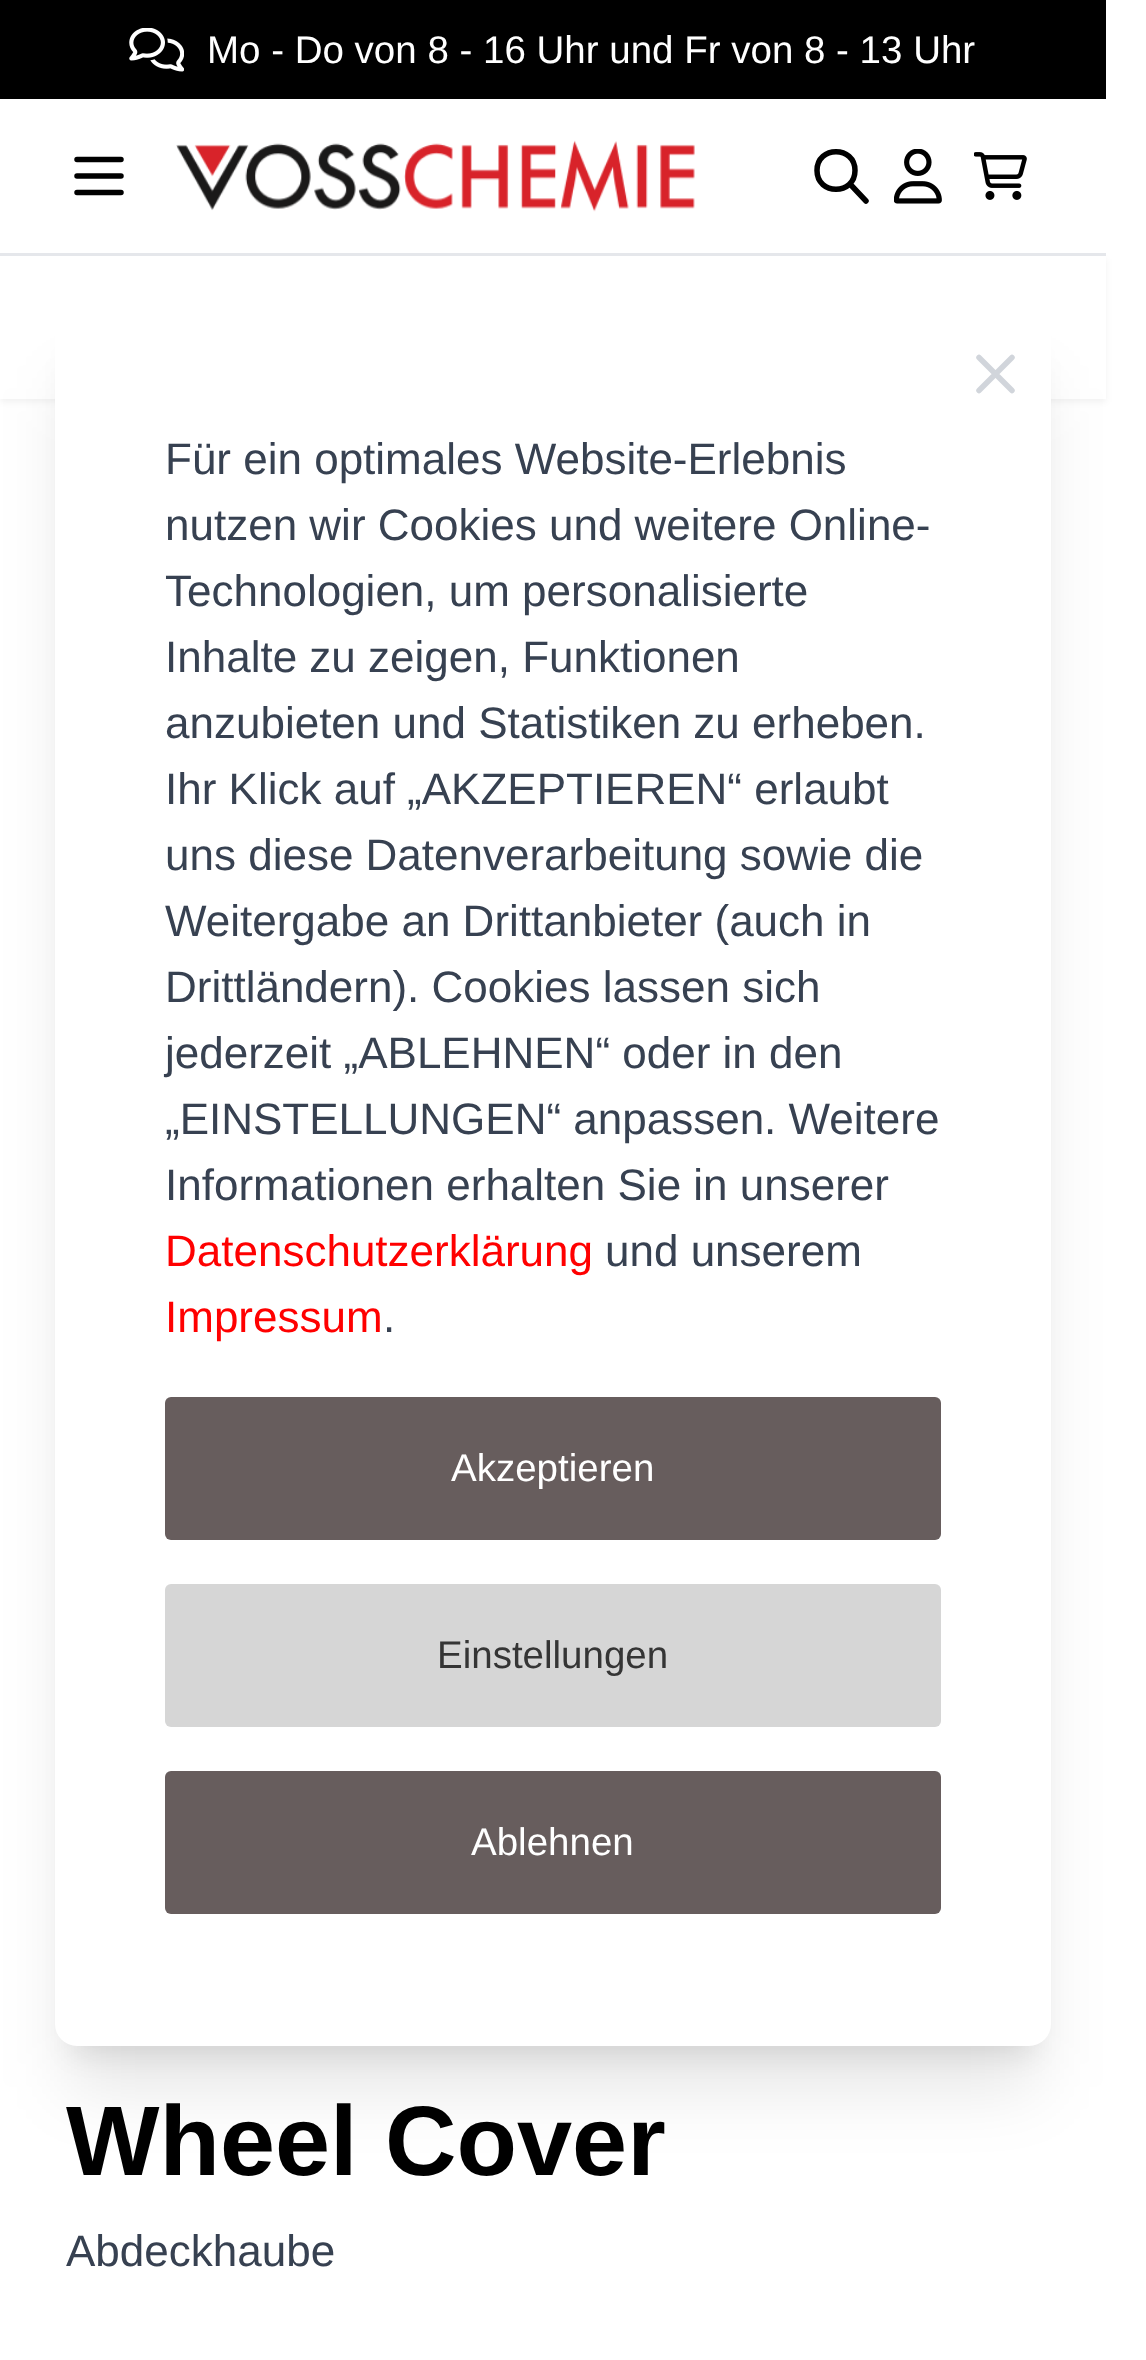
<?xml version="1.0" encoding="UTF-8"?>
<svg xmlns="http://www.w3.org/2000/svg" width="1146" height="2360">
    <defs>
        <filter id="blur1" x="-50%" y="-200%" width="200%" height="500%"><feGaussianBlur stdDeviation="3"/></filter>
        <filter id="blur2" x="-50%" y="-200%" width="200%" height="500%"><feGaussianBlur stdDeviation="14"/></filter>
        <filter id="blur3" x="-50%" y="-200%" width="200%" height="500%"><feGaussianBlur stdDeviation="34.5"/></filter>
    </defs>
    <rect width="100%" height="100%" fill="#FFFFFF"/>
    <rect x="0" y="0" width="1106" height="99" fill="#000000"/>
    <image x="129" y="28" width="55" height="44" href="img_01.png"/>
    <text x="207" y="63" font-family="Liberation Sans" font-size="38.5" fill="#FFFFFF">Mo - Do von 8 - 16 Uhr und Fr von 8 - 13 Uhr</text>
    <rect x="0" y="259" width="1106" height="143" fill="#000000" fill-opacity="0.05" filter="url(#blur1)"/>
    <rect x="0" y="253" width="1106" height="3" fill="#E5E7EB"/>
    <path d="M 77 159.5 H 121 M 77 176 H 121 M 77 192.5 H 121" fill="none" stroke="#000000" stroke-width="5.5" stroke-linecap="round" stroke-linejoin="round"/>
    <image x="176" y="140" width="519" height="72" href="img_02.png"/>
    <path d="M 866 201 L 850 184 M 855 170.5 C 855 195.5 817 195.5 817 170.5 C 817 145.5 855 145.5 855 170.5 Z" fill="none" stroke="#000000" stroke-width="5.5" stroke-linecap="round" stroke-linejoin="round"/>
    <image x="894" y="149" width="48" height="55" href="img_03.png"/>
    <image x="974" y="152" width="53" height="48" href="img_04.png"/>
    <rect x="0" y="256" width="1106" height="143" fill="#FFFFFF"/>
    <rect x="72" y="358" width="962" height="1694" rx="6" fill="#000000" fill-opacity="0.1" filter="url(#blur2)"/>
    <rect x="69" y="388" width="968" height="1699" rx="8" fill="#000000" fill-opacity="0.1" filter="url(#blur3)"/>
    <rect x="55" y="319" width="996" height="1727" rx="22" fill="#FFFFFF"/>
    <path d="M 979 390.5 L 1012 357.5 M 979 357.5 L 1012 390.5" fill="none" stroke="#D1D5DB" stroke-width="5.5" stroke-linecap="round" stroke-linejoin="round"/>
    <text font-family="Liberation Sans" font-size="44" fill="#374151">
        <tspan x="165" y="474">Für ein optimales Website-Erlebnis</tspan>
        <tspan x="165" y="540">nutzen wir Cookies und weitere Online-</tspan>
        <tspan x="165" y="606">Technologien, um personalisierte</tspan>
        <tspan x="165" y="672">Inhalte zu zeigen, Funktionen</tspan>
        <tspan x="165" y="738">anzubieten und Statistiken zu erheben.</tspan>
        <tspan x="165" y="804">Ihr Klick auf „AKZEPTIEREN“ erlaubt</tspan>
        <tspan x="165" y="870">uns diese Datenverarbeitung sowie die</tspan>
        <tspan x="165" y="936">Weitergabe an Drittanbieter (auch in</tspan>
        <tspan x="165" y="1002">Drittländern). Cookies lassen sich</tspan>
        <tspan x="165" y="1068">jederzeit „ABLEHNEN“ oder in den</tspan>
        <tspan x="165" y="1134">„EINSTELLUNGEN“ anpassen. Weitere</tspan>
        <tspan x="165" y="1200">Informationen erhalten Sie in unserer</tspan>
    </text>
    <text x="165" y="1266" font-family="Liberation Sans" font-size="44" fill="#FF0000">Datenschutzerklärung</text>
    <text x="605" y="1266" font-family="Liberation Sans" font-size="44" fill="#374151">und unserem</text>
    <text x="165" y="1332" font-family="Liberation Sans" font-size="44" fill="#FF0000">Impressum</text>
    <text x="383" y="1332" font-family="Liberation Sans" font-size="44" fill="#374151">.</text>
    <rect x="165" y="1397" width="776" height="143" rx="6" fill="#675D5D"/>
    <text x="451" y="1481" font-family="Liberation Sans" font-size="38.5" fill="#FFFFFF">Akzeptieren</text>
    <rect x="165" y="1584" width="776" height="143" rx="6" fill="#D6D6D6"/>
    <text x="437" y="1668" font-family="Liberation Sans" font-size="38.5" fill="#353535">Einstellungen</text>
    <rect x="165" y="1771" width="776" height="143" rx="6" fill="#675D5D"/>
    <text x="471" y="1855" font-family="Liberation Sans" font-size="38.5" fill="#FFFFFF">Ablehnen</text>
    <text x="66" y="2175" font-family="Liberation Sans" font-size="99" font-weight="700" fill="#000000">Wheel Cover</text>
    <text x="66" y="2266" font-family="Liberation Sans" font-size="44" fill="#374151">Abdeckhaube</text>
</svg>
